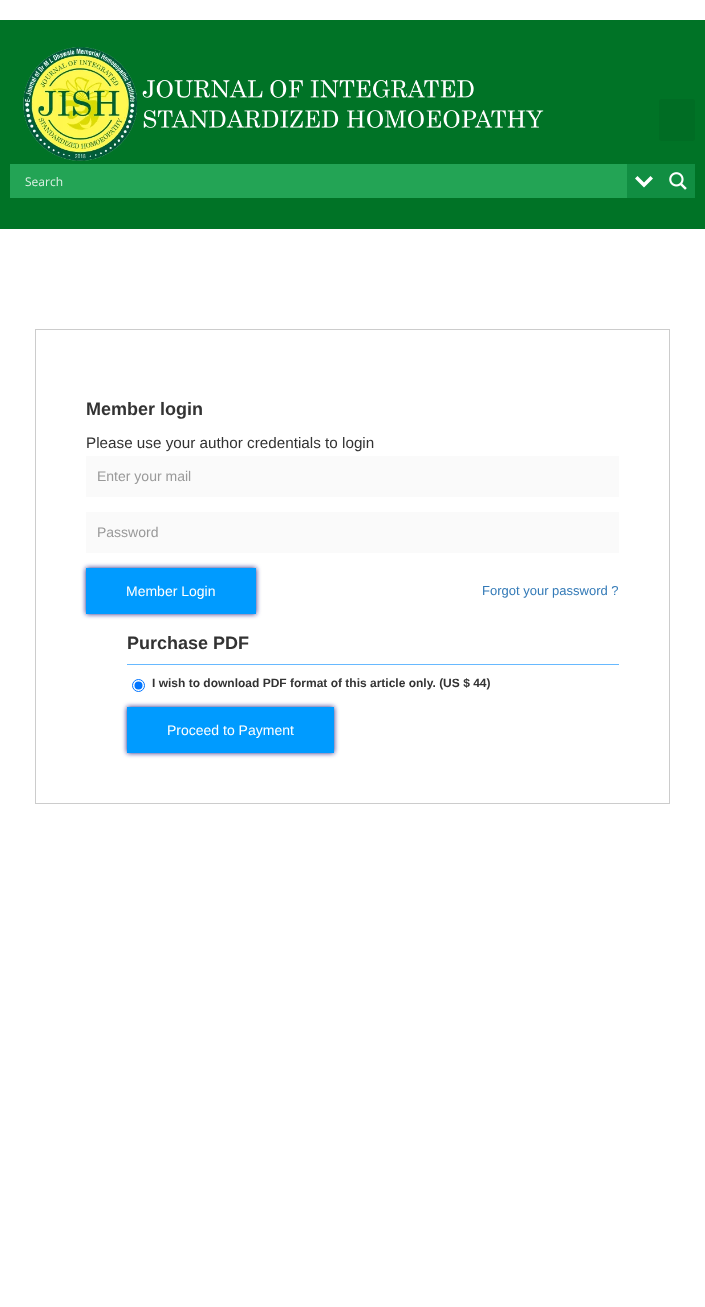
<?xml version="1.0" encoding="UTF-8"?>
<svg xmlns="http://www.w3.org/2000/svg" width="705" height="1307">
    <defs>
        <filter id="blur1" x="-50%" y="-200%" width="200%" height="500%"><feGaussianBlur stdDeviation="2.5"/></filter>
    </defs>
    <rect width="100%" height="100%" fill="#FFFFFF"/>
    <rect x="0" y="20" width="705" height="209" fill="#007326"/>
    <image x="23" y="47" width="521" height="114" href="img_01.png"/>
    <rect x="659" y="99" width="36" height="42" rx="3" fill="#006D24"/>
    <rect x="10" y="164" width="617" height="34" fill="#23A455"/>
    <rect x="627" y="164" width="68" height="34" fill="#118E42"/>
    <path d="M 650.5 176 L 653 178.5 L 644 187.5 L 635 178.5 L 637.5 176 L 644 182.5 Z" fill="#FFFFFF"/>
    <text x="25" y="186" font-family="Open Sans" font-size="12" fill="#DEF1E6">Search</text>
    <image x="669" y="172" width="18" height="18" href="img_02.png"/>
    <rect x="35.5" y="329.5" width="634" height="474" fill="none" stroke="#CCCCCC"/>
    <text x="86" y="415" font-family="Liberation Sans" font-size="18" font-weight="700" fill="#333333">Member login</text>
    <text x="86" y="448" font-family="Liberation Sans" font-size="15.25" fill="#333333">Please use your author credentials to login</text>
    <rect x="86" y="456" width="533" height="41" fill="#FAFAFA"/>
    <text x="97" y="481" font-family="Liberation Sans" font-size="14" fill="#999999">Enter your mail</text>
    <rect x="86" y="512" width="533" height="41" fill="#FAFAFA"/>
    <text x="97" y="537" font-family="Liberation Sans" font-size="14" fill="#999999">Password</text>
    <rect x="86" y="568" width="170" height="46" fill="#1B1C80" filter="url(#blur1)"/>
    <rect x="86" y="568" width="170" height="46" fill="#009BFF"/>
    <text x="126" y="596" font-family="Liberation Sans" font-size="14" fill="#FFFFFF">Member Login</text>
    <text x="482" y="595" font-family="Liberation Sans" font-size="13" fill="#337AB7">Forgot your password ?</text>
    <text x="127" y="649" font-family="Liberation Sans" font-size="18" font-weight="700" fill="#333333">Purchase PDF</text>
    <rect x="127" y="664" width="492" height="1" fill="#67B9FF"/>
    <circle cx="138.5" cy="685.5" r="6" fill="none" stroke="#0075FF"/>
    <circle cx="138.5" cy="685.5" r="4" fill="#0075FF"/>
    <text x="152" y="687" font-family="Liberation Sans" font-size="12" font-weight="700" fill="#333333">I wish to download PDF format of this article only. (US $ 44)</text>
    <rect x="127" y="707" width="207" height="46" fill="#1B1C80" filter="url(#blur1)"/>
    <rect x="127" y="707" width="207" height="46" fill="#009BFF"/>
    <text x="167" y="735" font-family="Liberation Sans" font-size="14" fill="#FFFFFF">Proceed to Payment</text>
</svg>
